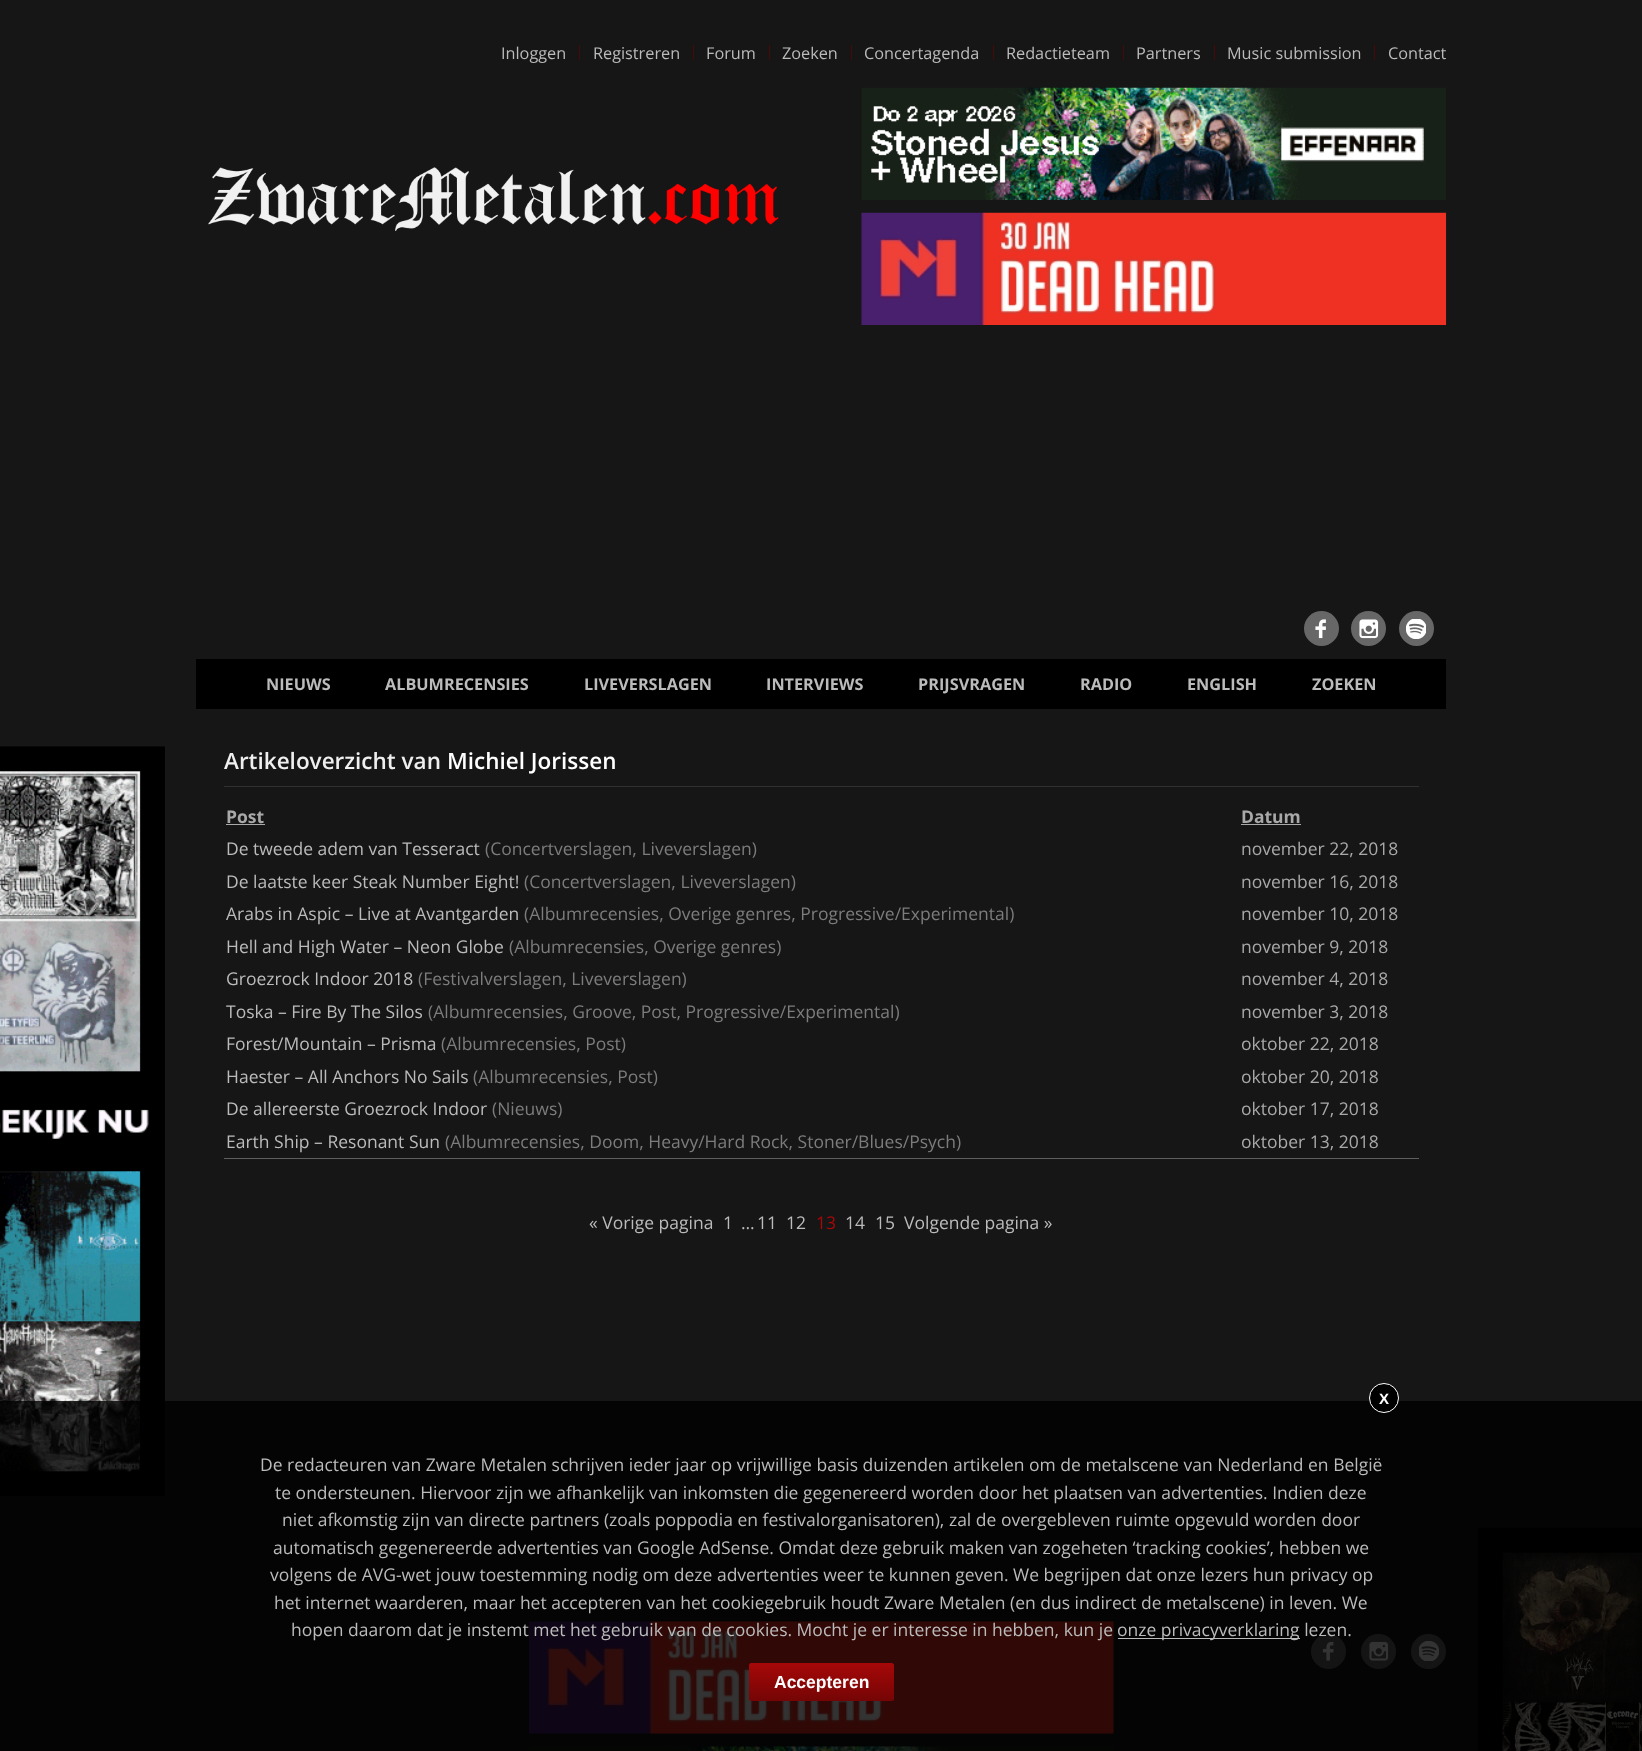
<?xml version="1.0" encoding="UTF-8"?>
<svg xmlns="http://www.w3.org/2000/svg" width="1642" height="1751">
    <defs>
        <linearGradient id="g1" gradientUnits="userSpaceOnUse" x1="821" y1="1701" x2="821" y2="1663"><stop offset="0" stop-color="#750505"/><stop offset="1" stop-color="#A70808"/></linearGradient>
    </defs>
    <rect width="100%" height="100%" fill="#161616"/>
    <text x="501" y="59" font-family="Open Sans" font-size="16.25" fill="#BBBBBB">Inloggen</text>
    <rect x="579" y="45" width="1" height="15" fill="#460B08"/>
    <text x="593" y="59" font-family="Open Sans" font-size="16.25" fill="#BBBBBB">Registreren</text>
    <rect x="693" y="45" width="1" height="15" fill="#460B08"/>
    <text x="706" y="59" font-family="Open Sans" font-size="16.25" fill="#BBBBBB">Forum</text>
    <rect x="769" y="45" width="1" height="15" fill="#460B08"/>
    <text x="782" y="59" font-family="Open Sans" font-size="16.25" fill="#BBBBBB">Zoeken</text>
    <rect x="851" y="45" width="1" height="15" fill="#460B08"/>
    <text x="864" y="59" font-family="Open Sans" font-size="16.25" fill="#BBBBBB">Concertagenda</text>
    <rect x="993" y="45" width="1" height="15" fill="#460B08"/>
    <text x="1006" y="59" font-family="Open Sans" font-size="16.25" fill="#BBBBBB">Redactieteam</text>
    <rect x="1123" y="45" width="1" height="15" fill="#460B08"/>
    <text x="1136" y="59" font-family="Open Sans" font-size="16.25" fill="#BBBBBB">Partners</text>
    <rect x="1214" y="45" width="1" height="15" fill="#460B08"/>
    <text x="1227" y="59" font-family="Open Sans" font-size="16.25" fill="#BBBBBB">Music submission</text>
    <rect x="1374" y="45" width="1" height="15" fill="#460B08"/>
    <text x="1388" y="59" font-family="Open Sans" font-size="16.25" fill="#BBBBBB">Contact</text>
    <image x="208" y="167" width="571" height="64" href="img_01.png"/>
    <image x="861" y="87" width="585" height="113" href="img_02.png"/>
    <image x="861" y="212" width="586" height="113" href="img_03.png"/>
    <circle cx="1321.5" cy="628.5" r="17.5" fill="#676767"/>
    <image x="1315" y="619" width="11" height="20" href="img_04.png"/>
    <circle cx="1368.5" cy="628.5" r="17.5" fill="#676767"/>
    <image x="1359" y="619" width="20" height="20" href="img_05.png"/>
    <circle cx="1416.5" cy="628.5" r="17.5" fill="#676767"/>
    <image x="1406" y="619" width="20" height="20" href="img_06.png"/>
    <rect x="196" y="659" width="1250" height="50" fill="#000000"/>
    <text x="266" y="690" font-family="Open Sans" font-size="16.25" font-weight="700" fill="#BBBBBB">NIEUWS</text>
    <text x="385" y="690" font-family="Open Sans" font-size="16.25" font-weight="700" fill="#BBBBBB">ALBUMRECENSIES</text>
    <text x="584" y="690" font-family="Open Sans" font-size="16.25" font-weight="700" fill="#BBBBBB">LIVEVERSLAGEN</text>
    <text x="766" y="690" font-family="Open Sans" font-size="16.25" font-weight="700" fill="#BBBBBB">INTERVIEWS</text>
    <text x="918" y="690" font-family="Open Sans" font-size="16.25" font-weight="700" fill="#BBBBBB">PRIJSVRAGEN</text>
    <text x="1080" y="690" font-family="Open Sans" font-size="16.25" font-weight="700" fill="#BBBBBB">RADIO</text>
    <text x="1187" y="690" font-family="Open Sans" font-size="16.25" font-weight="700" fill="#BBBBBB">ENGLISH</text>
    <text x="1312" y="690" font-family="Open Sans" font-size="16.25" font-weight="700" fill="#BBBBBB">ZOEKEN</text>
    <image x="0" y="746" width="165" height="750" href="img_07.png"/>
    <image x="1477" y="1527" width="165" height="224" href="img_08.png"/>
    <rect x="224" y="786" width="1195" height="1" fill="#303030"/>
    <text x="224" y="769" font-family="Open Sans" font-size="22.5" font-weight="600" fill="#EFEFEF">Artikeloverzicht van</text>
    <text x="447" y="769" font-family="Open Sans" font-size="22.5" font-weight="600" fill="#FFFFFF">Michiel Jorissen</text>
    <text x="226" y="823" font-family="Open Sans" font-size="17.5" font-weight="700" fill="#A9A9A9">Post</text>
    <rect x="226" y="824" width="39" height="1" fill="#A9A9A9"/>
    <text x="1241" y="823" font-family="Open Sans" font-size="17.5" font-weight="700" fill="#A9A9A9">Datum</text>
    <rect x="1241" y="824" width="60" height="1" fill="#A9A9A9"/>
    <text x="226" y="855" font-family="Open Sans" font-size="17.5" fill="#BBBBBB">De tweede adem van Tesseract</text>
    <text x="485" y="855" font-family="Open Sans" font-size="17.5" fill="#7C7C7C">(Concertverslagen, Liveverslagen)</text>
    <text x="1241" y="855" font-family="Open Sans" font-size="17.5" fill="#A9A9A9">november 22, 2018</text>
    <text x="226" y="888" font-family="Open Sans" font-size="17.5" fill="#BBBBBB">De laatste keer Steak Number Eight!</text>
    <text x="524" y="888" font-family="Open Sans" font-size="17.5" fill="#7C7C7C">(Concertverslagen, Liveverslagen)</text>
    <text x="1241" y="888" font-family="Open Sans" font-size="17.5" fill="#A9A9A9">november 16, 2018</text>
    <text x="226" y="920" font-family="Open Sans" font-size="17.5" fill="#BBBBBB">Arabs in Aspic – Live at Avantgarden</text>
    <text x="524" y="920" font-family="Open Sans" font-size="17.5" fill="#7C7C7C">(Albumrecensies, Overige genres, Progressive/Experimental)</text>
    <text x="1241" y="920" font-family="Open Sans" font-size="17.5" fill="#A9A9A9">november 10, 2018</text>
    <text x="226" y="953" font-family="Open Sans" font-size="17.5" fill="#BBBBBB">Hell and High Water – Neon Globe</text>
    <text x="509" y="953" font-family="Open Sans" font-size="17.5" fill="#7C7C7C">(Albumrecensies, Overige genres)</text>
    <text x="1241" y="953" font-family="Open Sans" font-size="17.5" fill="#A9A9A9">november 9, 2018</text>
    <text x="226" y="985" font-family="Open Sans" font-size="17.5" fill="#BBBBBB">Groezrock Indoor 2018</text>
    <text x="418" y="985" font-family="Open Sans" font-size="17.5" fill="#7C7C7C">(Festivalverslagen, Liveverslagen)</text>
    <text x="1241" y="985" font-family="Open Sans" font-size="17.5" fill="#A9A9A9">november 4, 2018</text>
    <text x="226" y="1018" font-family="Open Sans" font-size="17.5" fill="#BBBBBB">Toska – Fire By The Silos</text>
    <text x="428" y="1018" font-family="Open Sans" font-size="17.5" fill="#7C7C7C">(Albumrecensies, Groove, Post, Progressive/Experimental)</text>
    <text x="1241" y="1018" font-family="Open Sans" font-size="17.5" fill="#A9A9A9">november 3, 2018</text>
    <text x="226" y="1050" font-family="Open Sans" font-size="17.5" fill="#BBBBBB">Forest/Mountain – Prisma</text>
    <text x="441" y="1050" font-family="Open Sans" font-size="17.5" fill="#7C7C7C">(Albumrecensies, Post)</text>
    <text x="1241" y="1050" font-family="Open Sans" font-size="17.5" fill="#A9A9A9">oktober 22, 2018</text>
    <text x="226" y="1083" font-family="Open Sans" font-size="17.5" fill="#BBBBBB">Haester – All Anchors No Sails</text>
    <text x="473" y="1083" font-family="Open Sans" font-size="17.5" fill="#7C7C7C">(Albumrecensies, Post)</text>
    <text x="1241" y="1083" font-family="Open Sans" font-size="17.5" fill="#A9A9A9">oktober 20, 2018</text>
    <text x="226" y="1115" font-family="Open Sans" font-size="17.5" fill="#BBBBBB">De allereerste Groezrock Indoor</text>
    <text x="492" y="1115" font-family="Open Sans" font-size="17.5" fill="#7C7C7C">(Nieuws)</text>
    <text x="1241" y="1115" font-family="Open Sans" font-size="17.5" fill="#A9A9A9">oktober 17, 2018</text>
    <text x="226" y="1148" font-family="Open Sans" font-size="17.5" fill="#BBBBBB">Earth Ship – Resonant Sun</text>
    <text x="445" y="1148" font-family="Open Sans" font-size="17.5" fill="#7C7C7C">(Albumrecensies, Doom, Heavy/Hard Rock, Stoner/Blues/Psych)</text>
    <text x="1241" y="1148" font-family="Open Sans" font-size="17.5" fill="#A9A9A9">oktober 13, 2018</text>
    <rect x="224" y="1158" width="1195" height="1" fill="#5F5F5F"/>
    <text x="589" y="1229" font-family="Open Sans" font-size="17.5" fill="#BBBBBB">« Vorige pagina</text>
    <text x="723" y="1229" font-family="Open Sans" font-size="17.5" fill="#BBBBBB">1</text>
    <text x="741" y="1229" font-family="Open Sans" font-size="17.5" fill="#BBBBBB">…</text>
    <text x="757" y="1229" font-family="Open Sans" font-size="17.5" fill="#BBBBBB">11</text>
    <text x="786" y="1229" font-family="Open Sans" font-size="17.5" fill="#BBBBBB">12</text>
    <text x="816" y="1229" font-family="Open Sans" font-size="17.5" fill="#A70808">13</text>
    <text x="845" y="1229" font-family="Open Sans" font-size="17.5" fill="#BBBBBB">14</text>
    <text x="875" y="1229" font-family="Open Sans" font-size="17.5" fill="#BBBBBB">15</text>
    <text x="904" y="1229" font-family="Open Sans" font-size="17.5" fill="#BBBBBB">Volgende pagina »</text>
    <image x="528" y="1621" width="586" height="113" href="img_09.png"/>
    <image x="529" y="1746" width="585" height="5" href="img_10.png"/>
    <circle cx="1328.5" cy="1651.5" r="17.5" fill="#676767"/>
    <image x="1322" y="1641" width="12" height="20" href="img_11.png"/>
    <circle cx="1378.5" cy="1651.5" r="17.5" fill="#676767"/>
    <image x="1369" y="1641" width="20" height="20" href="img_12.png"/>
    <circle cx="1428.5" cy="1651.5" r="17.5" fill="#676767"/>
    <image x="1419" y="1641" width="20" height="20" href="img_13.png"/>
    <rect x="0" y="1401" width="1642" height="350" fill="#000000" fill-opacity="0.8"/>
    <circle cx="1384" cy="1398" r="14.5" fill="#000000" stroke="#FFFFFF"/>
    <text x="1379" y="1404" font-family="Liberation Sans" font-size="15" font-weight="700" fill="#FFFFFF">X</text>
    <rect x="749" y="1663" width="145" height="38" rx="2.5" fill="url(#g1)"/>
    <text x="774" y="1688" font-family="Liberation Sans" font-size="17.5" font-weight="700" fill="#FFFFFF">Accepteren</text>
    <text x="260" y="1471" font-family="Open Sans" font-size="17.5" fill="#BBBBBB">De redacteuren van Zware Metalen schrijven ieder jaar op vrijwillige basis duizenden artikelen om de metalscene van Nederland en België</text>
    <text x="275" y="1499" font-family="Open Sans" font-size="17.5" fill="#BBBBBB">te ondersteunen. Hiervoor zijn we afhankelijk van inkomsten die gegenereerd worden door het plaatsen van advertenties. Indien deze</text>
    <text x="282" y="1526" font-family="Open Sans" font-size="17.5" fill="#BBBBBB">niet afkomstig zijn van directe partners (zoals poppodia en festivalorganisatoren), zal de overgebleven ruimte opgevuld worden door</text>
    <text x="273" y="1554" font-family="Open Sans" font-size="17.5" fill="#BBBBBB">automatisch gegenereerde advertenties van Google AdSense. Omdat deze gebruik maken van zogeheten ‘tracking cookies’, hebben we</text>
    <text x="270" y="1581" font-family="Open Sans" font-size="17.5" fill="#BBBBBB">volgens de AVG-wet jouw toestemming nodig om deze advertenties weer te kunnen geven. We begrijpen dat onze lezers hun privacy op</text>
    <text x="274" y="1609" font-family="Open Sans" font-size="17.5" fill="#BBBBBB">het internet waarderen, maar het accepteren van het cookiegebruik houdt Zware Metalen (en dus indirect de metalscene) in leven. We</text>
    <text x="291" y="1636" font-family="Open Sans" font-size="17.5" fill="#BBBBBB">hopen daarom dat je instemt met het gebruik van de cookies. Mocht je er interesse in hebben, kun je</text>
    <rect x="1118" y="1638" width="182" height="1" fill="#BBBBBB"/>
    <text x="1117" y="1636" font-family="Open Sans" font-size="17.5" fill="#BBBBBB">onze privacyverklaring lezen.</text>
</svg>
